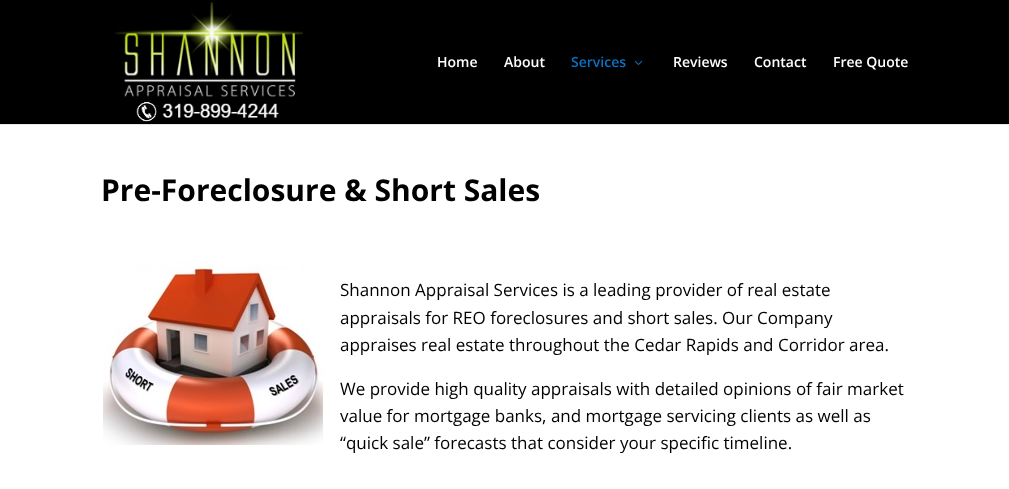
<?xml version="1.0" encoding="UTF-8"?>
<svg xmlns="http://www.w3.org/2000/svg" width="1009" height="489">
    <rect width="100%" height="100%" fill="#FFFFFF"/>
    <rect x="0" y="124" width="1009" height="1" fill="#E6E6E6"/>
    <rect x="0" y="0" width="1009" height="124" fill="#000000"/>
    <image x="115" y="2" width="188" height="120" href="img_01.png"/>
    <text x="437" y="67" font-family="Open Sans" font-size="14" font-weight="600" fill="#FFFFFF">Home</text>
    <text x="504" y="67" font-family="Open Sans" font-size="14" font-weight="600" fill="#FFFFFF">About</text>
    <text x="571" y="67" font-family="Open Sans" font-size="14" font-weight="600" fill="#0C71C3">Services</text>
    <image x="634" y="60" width="9" height="5" href="img_02.png"/>
    <text x="673" y="67" font-family="Open Sans" font-size="14" font-weight="600" fill="#FFFFFF">Reviews</text>
    <text x="754" y="67" font-family="Open Sans" font-size="14" font-weight="600" fill="#FFFFFF">Contact</text>
    <text x="833" y="67" font-family="Open Sans" font-size="14" font-weight="600" fill="#FFFFFF">Free Quote</text>
    <text x="101" y="201" font-family="Open Sans" font-size="30" font-weight="700" fill="#000000">Pre-Foreclosure &amp; Short Sales</text>
    <image x="103" y="259" width="222" height="188" href="img_03.png"/>
    <text font-family="Open Sans" font-size="17" fill="#000000">
        <tspan x="340" y="296">Shannon Appraisal Services is a leading provider of real estate</tspan>
        <tspan x="340" y="324">appraisals for REO foreclosures and short sales. Our Company</tspan>
        <tspan x="340" y="351">appraises real estate throughout the Cedar Rapids and Corridor area.</tspan>
    </text>
    <text font-family="Open Sans" font-size="17" fill="#000000">
        <tspan x="340" y="395">We provide high quality appraisals with detailed opinions of fair market</tspan>
        <tspan x="340" y="422">value for mortgage banks, and mortgage servicing clients as well as</tspan>
        <tspan x="340" y="449">“quick sale” forecasts that consider your specific timeline.</tspan>
    </text>
</svg>
